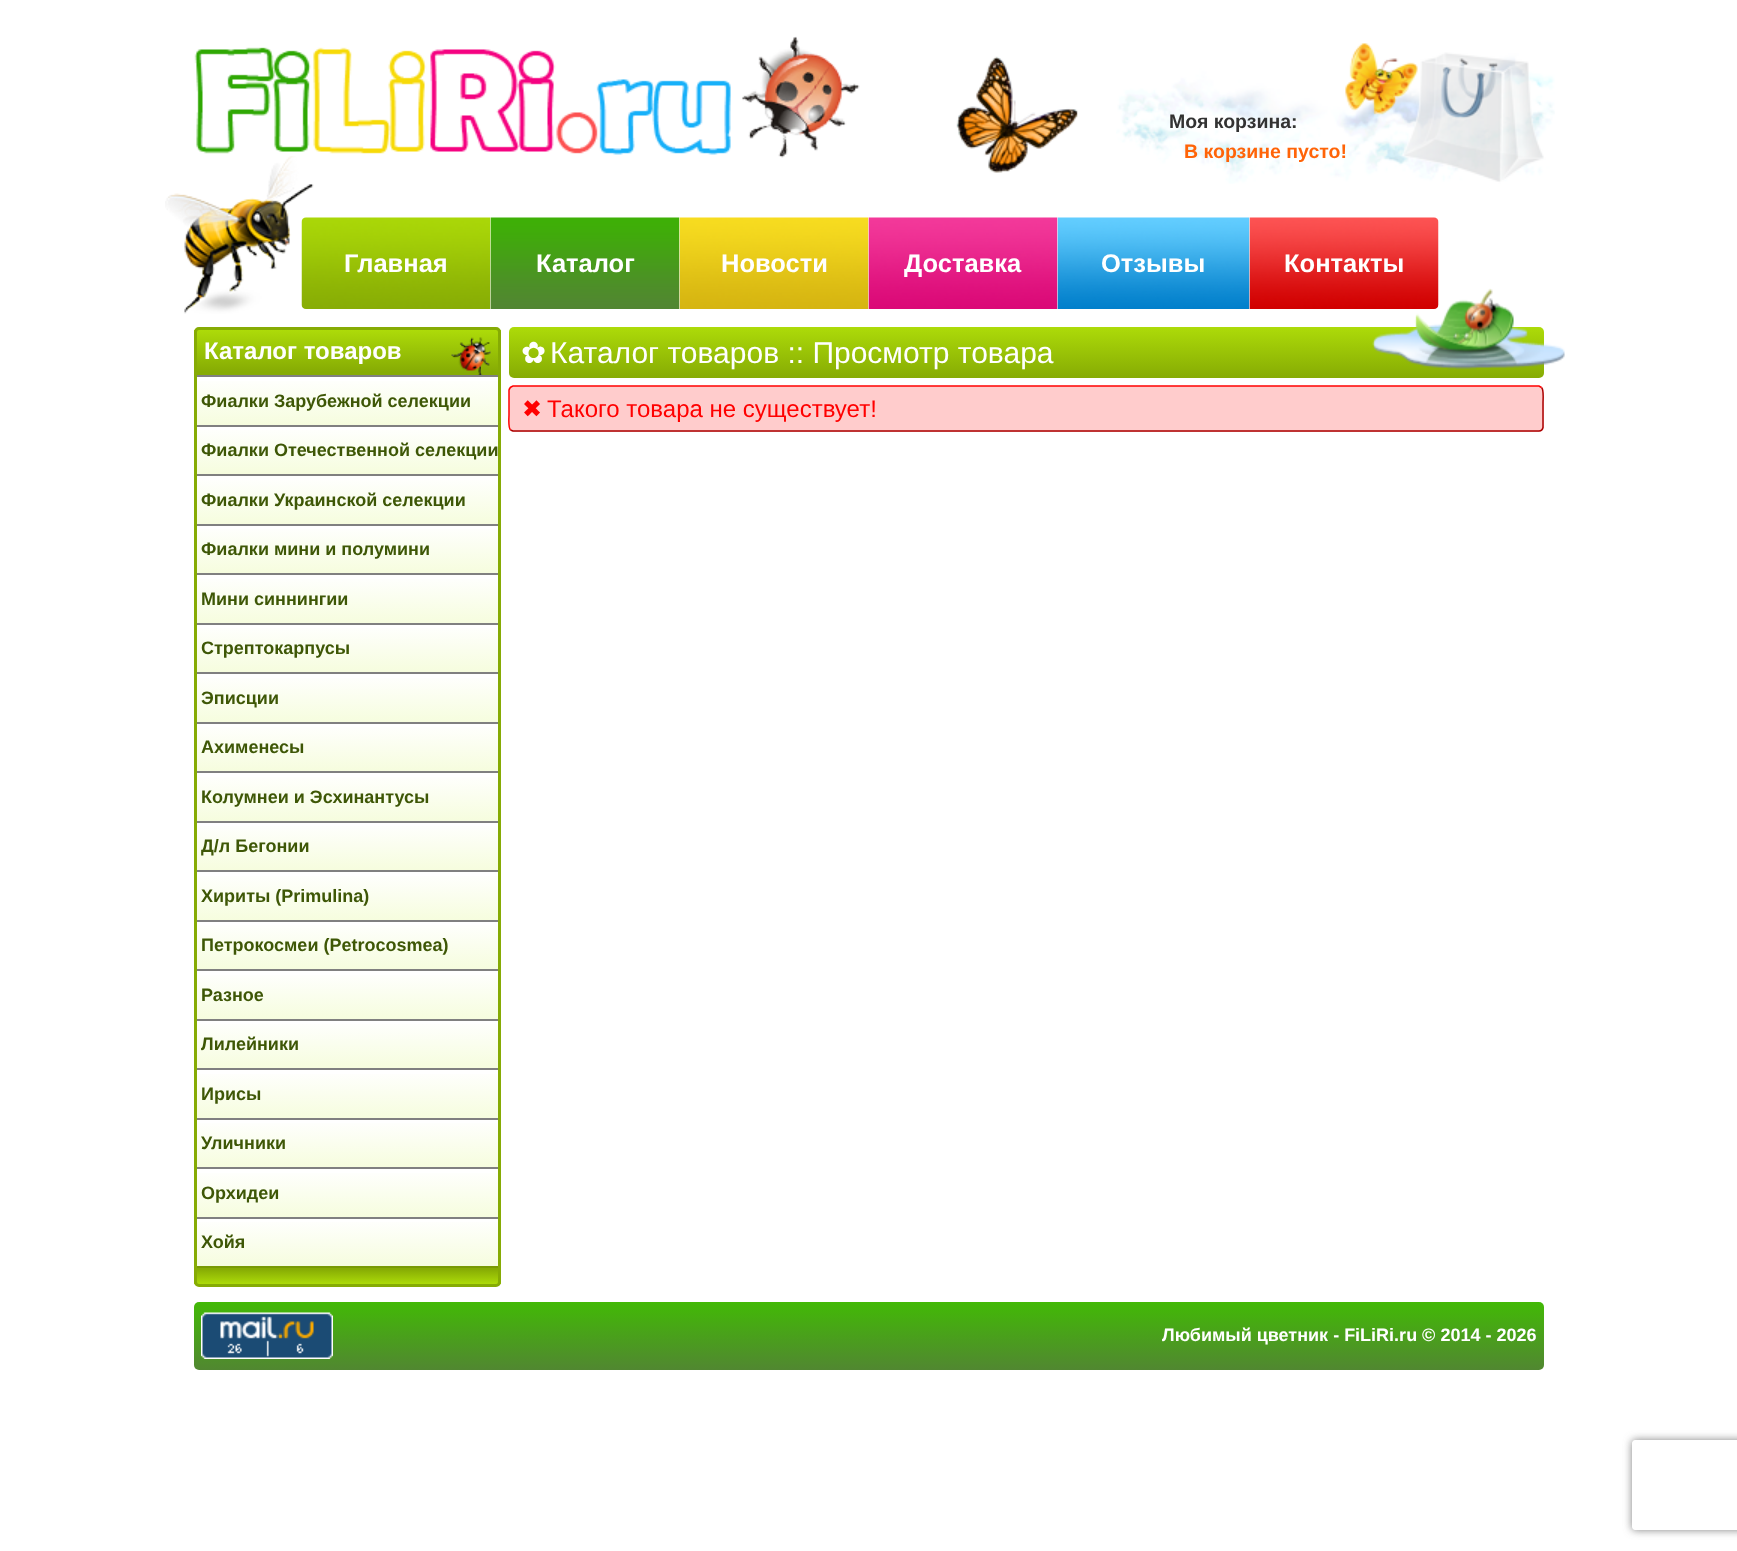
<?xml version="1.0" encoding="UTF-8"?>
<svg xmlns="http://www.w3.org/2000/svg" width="1737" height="1551">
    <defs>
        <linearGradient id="g1" gradientUnits="userSpaceOnUse" x1="1026" y1="327" x2="1026" y2="378"><stop offset="0" stop-color="#ADDB09"/><stop offset="1" stop-color="#86AB04"/></linearGradient>
        <linearGradient id="g2" gradientUnits="userSpaceOnUse" x1="347" y1="330" x2="347" y2="372"><stop offset="0" stop-color="#ADDB09"/><stop offset="1" stop-color="#86AB04"/></linearGradient>
        <linearGradient id="g3" gradientUnits="userSpaceOnUse" x1="347" y1="377" x2="347" y2="425"><stop offset="0" stop-color="#FFFFFF"/><stop offset="1" stop-color="#F6FDDE"/></linearGradient>
        <linearGradient id="g4" gradientUnits="userSpaceOnUse" x1="347" y1="426" x2="347" y2="474"><stop offset="0" stop-color="#FFFFFF"/><stop offset="1" stop-color="#F6FDDE"/></linearGradient>
        <linearGradient id="g5" gradientUnits="userSpaceOnUse" x1="347" y1="476" x2="347" y2="524"><stop offset="0" stop-color="#FFFFFF"/><stop offset="1" stop-color="#F6FDDE"/></linearGradient>
        <linearGradient id="g6" gradientUnits="userSpaceOnUse" x1="347" y1="525" x2="347" y2="573"><stop offset="0" stop-color="#FFFFFF"/><stop offset="1" stop-color="#F6FDDE"/></linearGradient>
        <linearGradient id="g7" gradientUnits="userSpaceOnUse" x1="347" y1="575" x2="347" y2="623"><stop offset="0" stop-color="#FFFFFF"/><stop offset="1" stop-color="#F6FDDE"/></linearGradient>
        <linearGradient id="g8" gradientUnits="userSpaceOnUse" x1="347" y1="624" x2="347" y2="672"><stop offset="0" stop-color="#FFFFFF"/><stop offset="1" stop-color="#F6FDDE"/></linearGradient>
        <linearGradient id="g9" gradientUnits="userSpaceOnUse" x1="347" y1="674" x2="347" y2="722"><stop offset="0" stop-color="#FFFFFF"/><stop offset="1" stop-color="#F6FDDE"/></linearGradient>
        <linearGradient id="g10" gradientUnits="userSpaceOnUse" x1="347" y1="723" x2="347" y2="771"><stop offset="0" stop-color="#FFFFFF"/><stop offset="1" stop-color="#F6FDDE"/></linearGradient>
        <linearGradient id="g11" gradientUnits="userSpaceOnUse" x1="347" y1="773" x2="347" y2="821"><stop offset="0" stop-color="#FFFFFF"/><stop offset="1" stop-color="#F6FDDE"/></linearGradient>
        <linearGradient id="g12" gradientUnits="userSpaceOnUse" x1="347" y1="822" x2="347" y2="870"><stop offset="0" stop-color="#FFFFFF"/><stop offset="1" stop-color="#F6FDDE"/></linearGradient>
        <linearGradient id="g13" gradientUnits="userSpaceOnUse" x1="347" y1="872" x2="347" y2="920"><stop offset="0" stop-color="#FFFFFF"/><stop offset="1" stop-color="#F6FDDE"/></linearGradient>
        <linearGradient id="g14" gradientUnits="userSpaceOnUse" x1="347" y1="921" x2="347" y2="969"><stop offset="0" stop-color="#FFFFFF"/><stop offset="1" stop-color="#F6FDDE"/></linearGradient>
        <linearGradient id="g15" gradientUnits="userSpaceOnUse" x1="347" y1="971" x2="347" y2="1019"><stop offset="0" stop-color="#FFFFFF"/><stop offset="1" stop-color="#F6FDDE"/></linearGradient>
        <linearGradient id="g16" gradientUnits="userSpaceOnUse" x1="347" y1="1020" x2="347" y2="1068"><stop offset="0" stop-color="#FFFFFF"/><stop offset="1" stop-color="#F6FDDE"/></linearGradient>
        <linearGradient id="g17" gradientUnits="userSpaceOnUse" x1="347" y1="1070" x2="347" y2="1118"><stop offset="0" stop-color="#FFFFFF"/><stop offset="1" stop-color="#F6FDDE"/></linearGradient>
        <linearGradient id="g18" gradientUnits="userSpaceOnUse" x1="347" y1="1119" x2="347" y2="1167"><stop offset="0" stop-color="#FFFFFF"/><stop offset="1" stop-color="#F6FDDE"/></linearGradient>
        <linearGradient id="g19" gradientUnits="userSpaceOnUse" x1="347" y1="1169" x2="347" y2="1217"><stop offset="0" stop-color="#FFFFFF"/><stop offset="1" stop-color="#F6FDDE"/></linearGradient>
        <linearGradient id="g20" gradientUnits="userSpaceOnUse" x1="347" y1="1269" x2="347" y2="1284"><stop offset="0" stop-color="#86AB04"/><stop offset="1" stop-color="#ADDB09"/></linearGradient>
        <linearGradient id="g21" gradientUnits="userSpaceOnUse" x1="347" y1="1218" x2="347" y2="1266"><stop offset="0" stop-color="#FFFFFF"/><stop offset="1" stop-color="#F6FDDE"/></linearGradient>
        <linearGradient id="g22" gradientUnits="userSpaceOnUse" x1="869" y1="1302" x2="869" y2="1370"><stop offset="0" stop-color="#42B906"/><stop offset="1" stop-color="#518731"/></linearGradient>
        <clipPath id="clip1"><path d="M 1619 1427 H 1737 V 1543 H 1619 Z M 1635 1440 H 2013 C 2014.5 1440 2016 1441.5 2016 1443 V 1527 C 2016 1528.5 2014.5 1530 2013 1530 H 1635 C 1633.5 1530 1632 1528.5 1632 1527 V 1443 C 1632 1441.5 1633.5 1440 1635 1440 Z" clip-rule="evenodd"/></clipPath>
        <filter id="blur1" x="-50%" y="-200%" width="200%" height="500%"><feGaussianBlur stdDeviation="4"/></filter>
    </defs>
    <rect width="100%" height="100%" fill="#FFFFFF"/>
    <image x="194" y="36" width="884" height="137" href="img_01.png"/>
    <image x="1116" y="43" width="439" height="141" href="img_02.png"/>
    <text x="1169" y="128" font-family="Liberation Sans" font-size="19.5" font-weight="700" fill="#333333">Моя корзина:</text>
    <text x="1184" y="158" font-family="Liberation Sans" font-size="19.5" font-weight="700" fill="#FF6408">В корзине пусто!</text>
    <image x="165" y="156" width="149" height="158" href="img_03.png"/>
    <image x="301" y="217" width="190" height="92" href="img_04.png"/>
    <text x="344" y="272" font-family="Liberation Sans" font-size="25.5" font-weight="700" fill="#FFFFFF">Главная</text>
    <image x="490" y="217" width="190" height="92" href="img_05.png"/>
    <text x="536" y="272" font-family="Liberation Sans" font-size="25.5" font-weight="700" fill="#FFFFFF">Каталог</text>
    <image x="679" y="217" width="190" height="92" href="img_06.png"/>
    <text x="721" y="272" font-family="Liberation Sans" font-size="25.5" font-weight="700" fill="#FFFFFF">Новости</text>
    <image x="868" y="217" width="190" height="92" href="img_07.png"/>
    <text x="904" y="272" font-family="Liberation Sans" font-size="25.5" font-weight="700" fill="#FFFFFF">Доставка</text>
    <image x="1057" y="217" width="193" height="92" href="img_08.png"/>
    <text x="1101" y="272" font-family="Liberation Sans" font-size="25.5" font-weight="700" fill="#FFFFFF">Отзывы</text>
    <rect x="509" y="327" width="1035" height="51" rx="5" fill="url(#g1)"/>
    <image x="1372" y="288" width="193" height="82" href="img_10.png"/>
    <image x="1249" y="217" width="190" height="92" href="img_09.png"/>
    <text x="1284" y="272" font-family="Liberation Sans" font-size="25.5" font-weight="700" fill="#FFFFFF">Контакты</text>
    <rect x="194" y="330" width="307" height="42" fill="url(#g2)"/>
    <path d="M 199 328.5 H 496 C 498 328.5 499.5 330 499.5 332 V 373.5 H 195.5 V 332 C 195.5 330 197 328.5 199 328.5 Z" fill="none" stroke="#86AB04" stroke-width="3"/>
    <text x="204" y="359" font-family="Liberation Sans" font-size="24" font-weight="700" fill="#FFFFFF">Каталог товаров</text>
    <image x="451" y="337" width="40" height="38" href="img_11.png"/>
    <rect x="498" y="375" width="3" height="891" fill="#86AB04"/>
    <rect x="194" y="375" width="3" height="891" fill="#86AB04"/>
    <rect x="197" y="381" width="301" height="44" fill="url(#g3)"/>
    <rect x="197" y="375" width="301" height="2" fill="#808080"/>
    <text x="201" y="407" font-family="Liberation Sans" font-size="18" font-weight="700" fill="#3E5706">Фиалки Зарубежной селекции</text>
    <rect x="197" y="430" width="301" height="44" fill="url(#g4)"/>
    <rect x="197" y="425" width="301" height="2" fill="#808080"/>
    <text x="201" y="456" font-family="Liberation Sans" font-size="18" font-weight="700" fill="#3E5706">Фиалки Отечественной селекции</text>
    <rect x="197" y="480" width="301" height="44" fill="url(#g5)"/>
    <rect x="197" y="474" width="301" height="2" fill="#808080"/>
    <text x="201" y="506" font-family="Liberation Sans" font-size="18" font-weight="700" fill="#3E5706">Фиалки Украинской селекции</text>
    <rect x="197" y="529" width="301" height="44" fill="url(#g6)"/>
    <rect x="197" y="524" width="301" height="2" fill="#808080"/>
    <text x="201" y="555" font-family="Liberation Sans" font-size="18" font-weight="700" fill="#3E5706">Фиалки мини и полумини</text>
    <rect x="197" y="579" width="301" height="44" fill="url(#g7)"/>
    <rect x="197" y="573" width="301" height="2" fill="#808080"/>
    <text x="201" y="605" font-family="Liberation Sans" font-size="18" font-weight="700" fill="#3E5706">Мини синнингии</text>
    <rect x="197" y="628" width="301" height="44" fill="url(#g8)"/>
    <rect x="197" y="623" width="301" height="2" fill="#808080"/>
    <text x="201" y="654" font-family="Liberation Sans" font-size="18" font-weight="700" fill="#3E5706">Стрептокарпусы</text>
    <rect x="197" y="678" width="301" height="44" fill="url(#g9)"/>
    <rect x="197" y="672" width="301" height="2" fill="#808080"/>
    <text x="201" y="704" font-family="Liberation Sans" font-size="18" font-weight="700" fill="#3E5706">Эписции</text>
    <rect x="197" y="727" width="301" height="44" fill="url(#g10)"/>
    <rect x="197" y="722" width="301" height="2" fill="#808080"/>
    <text x="201" y="753" font-family="Liberation Sans" font-size="18" font-weight="700" fill="#3E5706">Ахименесы</text>
    <rect x="197" y="777" width="301" height="44" fill="url(#g11)"/>
    <rect x="197" y="771" width="301" height="2" fill="#808080"/>
    <text x="201" y="803" font-family="Liberation Sans" font-size="18" font-weight="700" fill="#3E5706">Колумнеи и Эсхинантусы</text>
    <rect x="197" y="826" width="301" height="44" fill="url(#g12)"/>
    <rect x="197" y="821" width="301" height="2" fill="#808080"/>
    <text x="201" y="852" font-family="Liberation Sans" font-size="18" font-weight="700" fill="#3E5706">Д/л Бегонии</text>
    <rect x="197" y="876" width="301" height="44" fill="url(#g13)"/>
    <rect x="197" y="870" width="301" height="2" fill="#808080"/>
    <text x="201" y="902" font-family="Liberation Sans" font-size="18" font-weight="700" fill="#3E5706">Хириты (Primulina)</text>
    <rect x="197" y="925" width="301" height="44" fill="url(#g14)"/>
    <rect x="197" y="920" width="301" height="2" fill="#808080"/>
    <text x="201" y="951" font-family="Liberation Sans" font-size="18" font-weight="700" fill="#3E5706">Петрокосмеи (Petrocosmea)</text>
    <rect x="197" y="975" width="301" height="44" fill="url(#g15)"/>
    <rect x="197" y="969" width="301" height="2" fill="#808080"/>
    <text x="201" y="1001" font-family="Liberation Sans" font-size="18" font-weight="700" fill="#3E5706">Разное</text>
    <rect x="197" y="1024" width="301" height="44" fill="url(#g16)"/>
    <rect x="197" y="1019" width="301" height="2" fill="#808080"/>
    <text x="201" y="1050" font-family="Liberation Sans" font-size="18" font-weight="700" fill="#3E5706">Лилейники</text>
    <rect x="197" y="1074" width="301" height="44" fill="url(#g17)"/>
    <rect x="197" y="1068" width="301" height="2" fill="#808080"/>
    <text x="201" y="1100" font-family="Liberation Sans" font-size="18" font-weight="700" fill="#3E5706">Ирисы</text>
    <rect x="197" y="1123" width="301" height="44" fill="url(#g18)"/>
    <rect x="197" y="1118" width="301" height="2" fill="#808080"/>
    <text x="201" y="1149" font-family="Liberation Sans" font-size="18" font-weight="700" fill="#3E5706">Уличники</text>
    <rect x="197" y="1173" width="301" height="44" fill="url(#g19)"/>
    <rect x="197" y="1167" width="301" height="2" fill="#808080"/>
    <text x="201" y="1199" font-family="Liberation Sans" font-size="18" font-weight="700" fill="#3E5706">Орхидеи</text>
    <rect x="194" y="1269" width="307" height="15" fill="url(#g20)"/>
    <path d="M 195.5 1267.5 H 499.5 V 1282 C 499.5 1284 498 1285.5 496 1285.5 H 199 C 197 1285.5 195.5 1284 195.5 1282 Z" fill="none" stroke="#86AB04" stroke-width="3"/>
    <rect x="197" y="1266" width="301" height="2" fill="#799A04"/>
    <rect x="197" y="1222" width="301" height="44" fill="url(#g21)"/>
    <rect x="197" y="1217" width="301" height="2" fill="#808080"/>
    <text x="201" y="1248" font-family="Liberation Sans" font-size="18" font-weight="700" fill="#3E5706">Хойя</text>
    <text x="521" y="363" font-family="DejaVu Sans" font-size="30" fill="#FFFFFF">✿</text>
    <text x="550" y="363" font-family="Liberation Sans" font-size="30" fill="#FFFFFF">Каталог товаров :: Просмотр товара</text>
    <rect x="509" y="386" width="1035" height="46" rx="5" fill="#FFCCCC"/>
    <path d="M 1541.5 387.5 C 1544 390 1543 399.5 1543 402.5 V 427.5 C 1542.5 429.5 1541 431 1539 431 H 513 L 510.5 430" fill="none" stroke="#AA0000" stroke-width="1.5"/>
    <path d="M 510.5 430 C 508 427.5 509 418 509 415 V 390 C 509.5 388 511 386.5 513 386 H 1539 L 1541.5 387.5" fill="none" stroke="#FF0000" stroke-width="1.5"/>
    <text x="522" y="417" font-family="DejaVu Sans" font-size="24" fill="#FF0000">✖</text>
    <text x="547" y="417" font-family="Liberation Sans" font-size="24" fill="#FF0000">Такого товара не существует!</text>
    <rect x="194" y="1302" width="1350" height="68" rx="5" fill="url(#g22)"/>
    <image x="201" y="1312" width="132" height="47" href="img_12.png"/>
    <text x="1162" y="1341" font-family="Liberation Sans" font-size="18" font-weight="700" fill="#FFFFFF">Любимый цветник - FiLiRi.ru © 2014 - 2026</text>
    <g clip-path="url(#clip1)">
        <rect x="1632" y="1440" width="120" height="90" rx="3" fill="#808080" filter="url(#blur1)"/>
    </g>
</svg>
